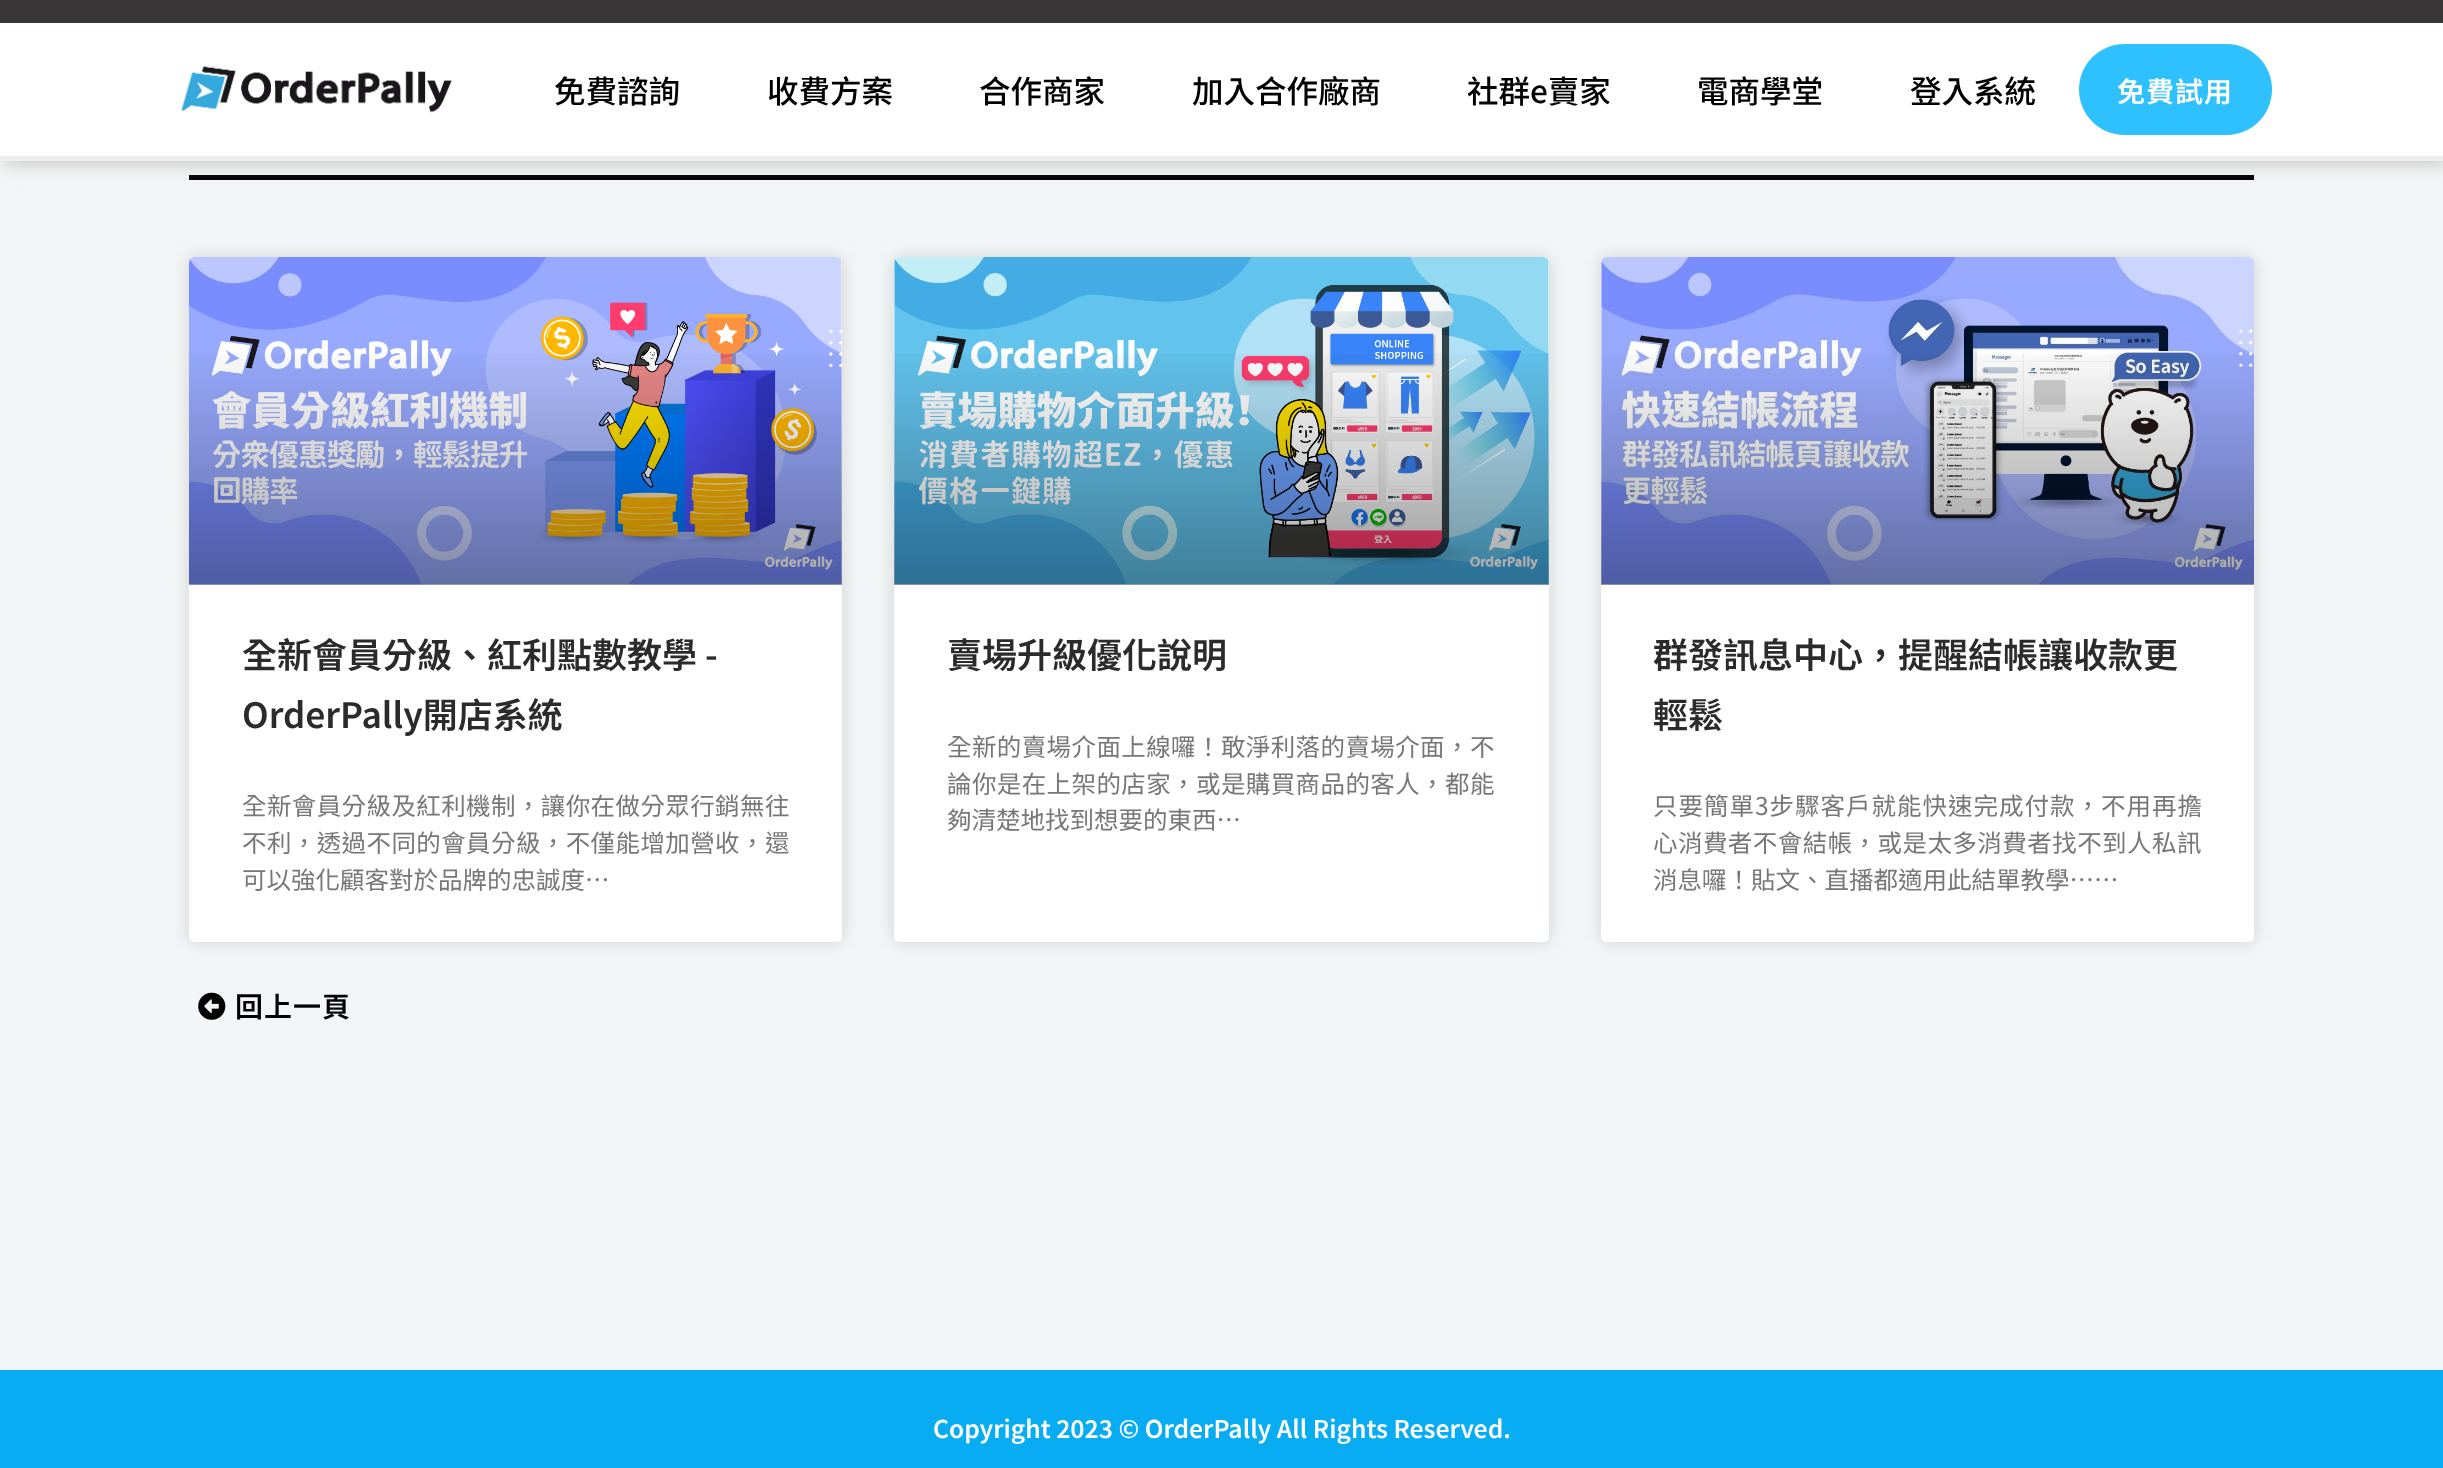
<?xml version="1.0" encoding="UTF-8"?>
<svg xmlns="http://www.w3.org/2000/svg" width="2443" height="1468">
    <defs>
        <filter id="blur1" x="-50%" y="-200%" width="200%" height="500%"><feGaussianBlur stdDeviation="9"/></filter>
        <linearGradient id="g1" gradientUnits="userSpaceOnUse" x1="515" y1="585" x2="515" y2="257"><stop offset="0" stop-color="#000000" stop-opacity="0.35"/><stop offset="0.75" stop-color="#000000" stop-opacity="0"/></linearGradient>
        <linearGradient id="g2" gradientUnits="userSpaceOnUse" x1="1222" y1="585" x2="1222" y2="257"><stop offset="0" stop-color="#000000" stop-opacity="0.35"/><stop offset="0.75" stop-color="#000000" stop-opacity="0"/></linearGradient>
        <linearGradient id="g3" gradientUnits="userSpaceOnUse" x1="1928" y1="585" x2="1928" y2="257"><stop offset="0" stop-color="#000000" stop-opacity="0.35"/><stop offset="0.75" stop-color="#000000" stop-opacity="0"/></linearGradient>
    </defs>
    <rect width="100%" height="100%" fill="#F3F6F6"/>
    <rect x="189" y="175" width="2065" height="5" fill="#000000"/>
    <rect x="4" y="4" width="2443" height="161" fill="#A49B9B" fill-opacity="0.5" filter="url(#blur1)"/>
    <rect x="0" y="23" width="2443" height="133" fill="#FFFFFF"/>
    <rect x="0" y="0" width="2443" height="23" fill="#373535"/>
    <image x="181" y="66" width="271" height="47" href="img_01.png"/>
    <text x="554" y="103" font-family="Noto Sans TC" font-size="31.5" font-weight="500" fill="#000000">免費諮詢</text>
    <text x="767" y="103" font-family="Noto Sans TC" font-size="31.5" font-weight="500" fill="#000000">收費方案</text>
    <text x="979" y="103" font-family="Noto Sans TC" font-size="31.5" font-weight="500" fill="#000000">合作商家</text>
    <text x="1192" y="103" font-family="Noto Sans TC" font-size="31.5" font-weight="500" fill="#000000">加入合作廠商</text>
    <text x="1467" y="103" font-family="Noto Sans TC" font-size="31.5" font-weight="500" fill="#000000">社群e賣家</text>
    <text x="1697" y="103" font-family="Noto Sans TC" font-size="31.5" font-weight="500" fill="#000000">電商學堂</text>
    <text x="1910" y="103" font-family="Noto Sans TC" font-size="31.5" font-weight="500" fill="#000000">登入系統</text>
    <rect x="2079" y="44" width="193" height="91" rx="45.5" fill="#2FC1FF"/>
    <text x="2117" y="102" font-family="Noto Sans TC" font-size="28" font-weight="600" letter-spacing="1" fill="#FFFFFF">免費試用</text>
    <rect x="0" y="156" width="2443" height="5" fill="#EEEEEE"/>
    <rect x="189" y="257" width="653" height="685" rx="5" fill="#000000" fill-opacity="0.15" filter="url(#blur1)"/>
    <rect x="189" y="257" width="653" height="685" rx="5" fill="#FFFFFF"/>
    <image x="189" y="257" width="653" height="328" href="img_02.png"/>
    <rect x="189" y="354" width="653" height="231" fill="url(#g1)"/>
    <text font-family="Noto Sans TC" font-size="35" font-weight="600" fill="#2B2B2B">
        <tspan x="242" y="668">全新會員分級、紅利點數教學 -</tspan>
        <tspan x="242" y="728">OrderPally開店系統</tspan>
    </text>
    <text font-family="Noto Sans TC" font-size="24.5" letter-spacing="0.4" fill="#777777">
        <tspan x="242" y="815">全新會員分級及紅利機制，讓你在做分眾行銷無往</tspan>
        <tspan x="242" y="852">不利，透過不同的會員分級，不僅能增加營收，還</tspan>
    </text>
    <text x="242" y="889" font-family="Noto Sans TC" font-size="24.5" fill="#777777">可以強化顧客對於品牌的忠誠度…</text>
    <rect x="894" y="257" width="655" height="685" rx="5" fill="#000000" fill-opacity="0.15" filter="url(#blur1)"/>
    <rect x="894" y="257" width="655" height="685" rx="5" fill="#FFFFFF"/>
    <image x="894" y="257" width="655" height="328" href="img_03.png"/>
    <rect x="894" y="354" width="655" height="231" fill="url(#g2)"/>
    <text x="947" y="668" font-family="Noto Sans TC" font-size="35" font-weight="600" fill="#2B2B2B">賣場升級優化說明</text>
    <text font-family="Noto Sans TC" font-size="24.5" letter-spacing="0.4" fill="#777777">
        <tspan x="947" y="756">全新的賣場介面上線囉！敢淨利落的賣場介面，不</tspan>
        <tspan x="947" y="793">論你是在上架的店家，或是購買商品的客人，都能</tspan>
    </text>
    <text x="947" y="829" font-family="Noto Sans TC" font-size="24.5" fill="#777777">夠清楚地找到想要的東西…</text>
    <rect x="1601" y="257" width="653" height="685" rx="5" fill="#000000" fill-opacity="0.15" filter="url(#blur1)"/>
    <rect x="1601" y="257" width="653" height="685" rx="5" fill="#FFFFFF"/>
    <image x="1601" y="257" width="653" height="328" href="img_04.png"/>
    <rect x="1601" y="354" width="653" height="231" fill="url(#g3)"/>
    <text font-family="Noto Sans TC" font-size="35" font-weight="600" fill="#2B2B2B">
        <tspan x="1653" y="668">群發訊息中心，提醒結帳讓收款更</tspan>
        <tspan x="1653" y="728">輕鬆</tspan>
    </text>
    <text x="1653" y="815" font-family="Noto Sans TC" font-size="24.5" letter-spacing="1" fill="#777777">只要簡單3步驟客戶就能快速完成付款，不用再擔</text>
    <text x="1653" y="852" font-family="Noto Sans TC" font-size="24.5" letter-spacing="0.45" fill="#777777">心消費者不會結帳，或是太多消費者找不到人私訊</text>
    <text x="1653" y="889" font-family="Noto Sans TC" font-size="24.5" fill="#777777">消息囉！貼文、直播都適用此結單教學……</text>
    <image x="198" y="992" width="28" height="28" href="img_05.png"/>
    <text x="235" y="1017" font-family="Noto Sans TC" font-size="28" font-weight="600" letter-spacing="1" fill="#000000">回上一頁</text>
    <rect x="0" y="1370" width="2443" height="98" fill="#08ACF2"/>
    <text x="933" y="1438" font-family="Noto Sans TC" font-size="24.5" font-weight="600" fill="#FFFFFF">Copyright 2023 © OrderPally All Rights Reserved.</text>
</svg>
